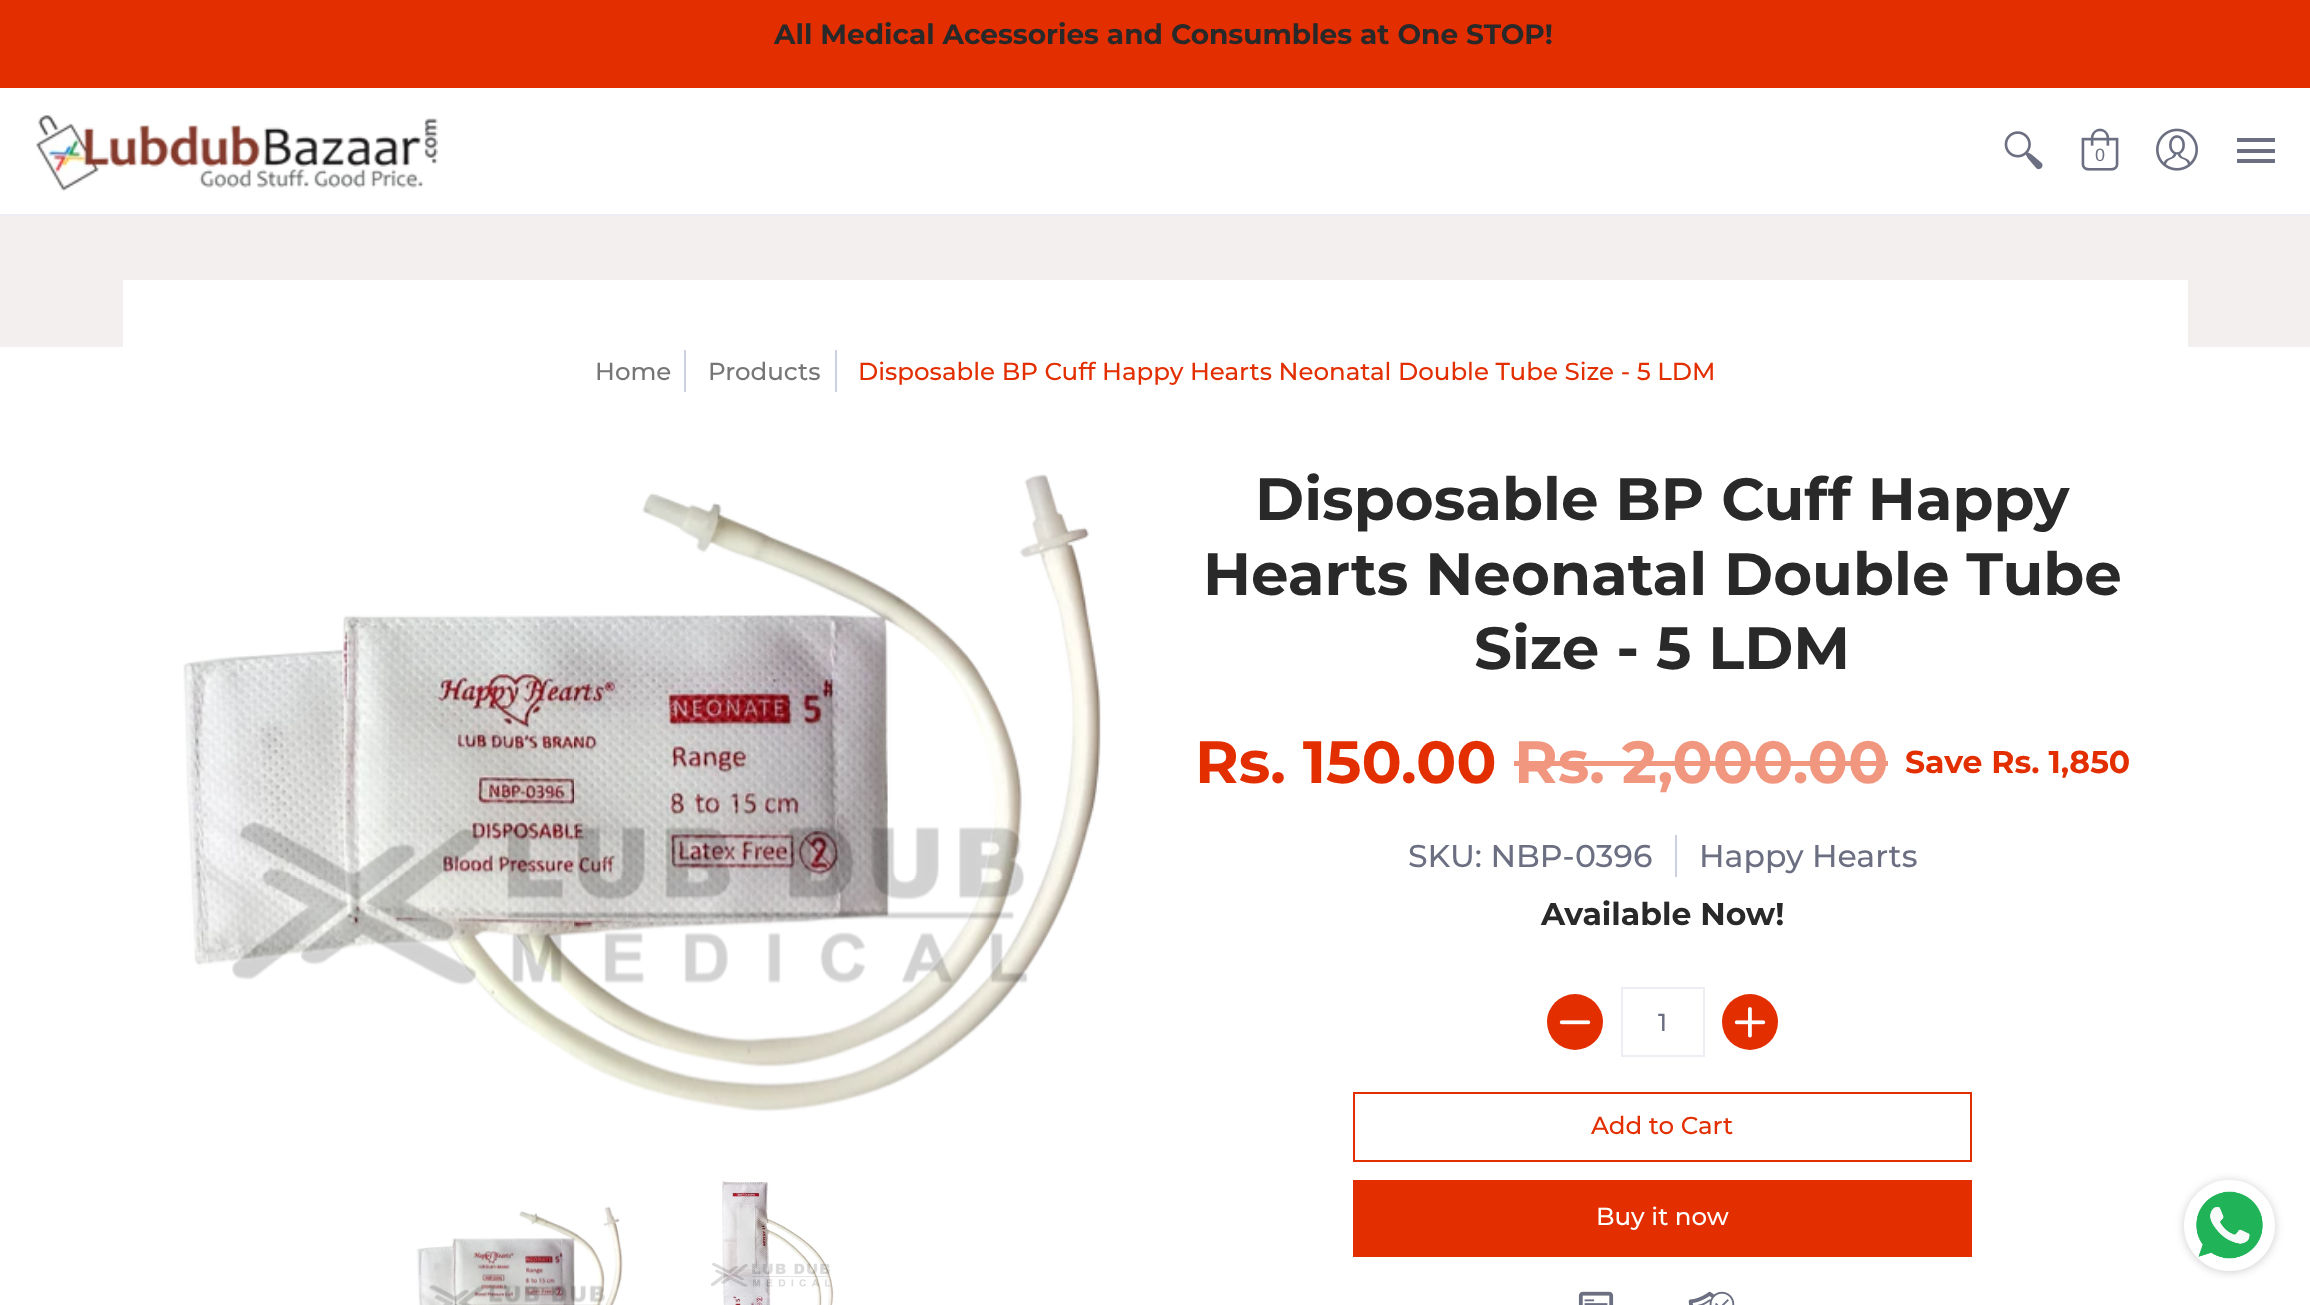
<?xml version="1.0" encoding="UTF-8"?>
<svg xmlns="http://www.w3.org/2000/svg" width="2310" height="1305">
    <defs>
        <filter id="blur1" x="-50%" y="-200%" width="200%" height="500%"><feGaussianBlur stdDeviation="5"/></filter>
    </defs>
    <rect width="100%" height="100%" fill="#FFFFFF"/>
    <rect x="0" y="0" width="2310" height="88" fill="#E32E00"/>
    <text x="774" y="44" font-family="Montserrat" font-size="28" font-weight="700" fill="#292929">All Medical Acessories and Consumbles at One STOP!</text>
    <rect x="0" y="214" width="2310" height="2" fill="#EDEEF4"/>
    <image x="36" y="115" width="402" height="77" href="img_01.png"/>
    <image x="2004" y="131" width="39" height="39" href="img_02.png"/>
    <image x="2081" y="128" width="38" height="43" href="img_03.png"/>
    <text x="2095" y="161" font-family="Liberation Sans" font-size="18" fill="#6B6F81">0</text>
    <image x="2156" y="128" width="42" height="43" href="img_04.png"/>
    <rect x="2237" y="138" width="38" height="4" fill="#6B6F81"/>
    <rect x="2237" y="159" width="38" height="4" fill="#6B6F81"/>
    <rect x="2237" y="149" width="38" height="4" fill="#6B6F81"/>
    <rect x="0" y="216" width="2310" height="131" fill="#F3EFEF"/>
    <rect x="123" y="280" width="2065" height="67" fill="#FFFFFF"/>
    <text x="595" y="380" font-family="Montserrat" font-size="24.5" font-weight="500" fill="#767676">Home</text>
    <rect x="684" y="350" width="2" height="42" fill="#CDD0E1"/>
    <text x="708" y="380" font-family="Montserrat" font-size="24.5" font-weight="500" fill="#767676">Products</text>
    <rect x="835" y="350" width="2" height="42" fill="#CDD0E1"/>
    <text x="858" y="380" font-family="Montserrat" font-size="24.5" font-weight="500" fill="#E32E00">Disposable BP Cuff Happy Hearts Neonatal Double Tube Size - 5 LDM</text>
    <image x="183" y="474" width="918" height="638" href="img_05.png"/>
    <image x="416" y="1206" width="207" height="99" href="img_06.png"/>
    <image x="711" y="1181" width="123" height="124" href="img_07.png"/>
    <text x="1255" y="520" font-family="Montserrat" font-size="59.5" font-weight="700" fill="#292929">Disposable BP Cuff Happy</text>
    <text x="1203" y="595" font-family="Montserrat" font-size="59.5" font-weight="700" fill="#292929">Hearts Neonatal Double Tube</text>
    <text x="1474" y="669" font-family="Montserrat" font-size="59.5" font-weight="700" fill="#292929">Size - 5 LDM</text>
    <text x="1195" y="783" font-family="Montserrat" font-size="59.5" font-weight="700" fill="#E32E00">Rs. 150.00</text>
    <text x="1514" y="783" font-family="Montserrat" font-size="59.5" font-weight="700" fill="#F19780">Rs. 2,000.00</text>
    <rect x="1514" y="761" width="374" height="5" fill="#F19780"/>
    <text x="1905" y="773" font-family="Montserrat" font-size="31.5" font-weight="700" fill="#E32E00">Save Rs. 1,850</text>
    <text x="1408" y="867" font-family="Montserrat" font-size="31.5" font-weight="500" fill="#6B6F81">SKU: NBP-0396</text>
    <rect x="1675" y="835" width="2" height="42" fill="#CDD0E1"/>
    <text x="1699" y="867" font-family="Montserrat" font-size="31.5" font-weight="500" fill="#6B6F81">Happy Hearts</text>
    <text x="1541" y="925" font-family="Montserrat" font-size="31.5" font-weight="700" fill="#292929">Available Now!</text>
    <circle cx="1575" cy="1022" r="28" fill="#E32E00"/>
    <image x="1559" y="1020" width="32" height="5" href="img_08.png"/>
    <rect x="1622" y="988" width="82" height="68" fill="none" stroke="#EDEEF4" stroke-width="2"/>
    <text x="1658" y="1031" font-family="Montserrat" font-size="24.5" font-weight="500" fill="#6B6F81">1</text>
    <circle cx="1750" cy="1022" r="28" fill="#E32E00"/>
    <image x="1734" y="1007" width="32" height="31" href="img_09.png"/>
    <rect x="1354" y="1093" width="617" height="68" fill="none" stroke="#E32E00" stroke-width="2"/>
    <text x="1591" y="1134" font-family="Montserrat" font-size="24.5" font-weight="500" fill="#E32E00">Add to Cart</text>
    <rect x="1353" y="1180" width="619" height="77" fill="#E32E00"/>
    <text x="1596" y="1225" font-family="Montserrat" font-size="24.5" font-weight="500" fill="#FFFFFF">Buy it now</text>
    <image x="1578" y="1291" width="36" height="14" href="img_10.png"/>
    <image x="1688" y="1291" width="47" height="14" href="img_11.png"/>
    <rect x="2184" y="1181" width="91" height="91" rx="45.5" fill="#1B1B1B" fill-opacity="0.2" filter="url(#blur1)"/>
    <circle cx="2229.5" cy="1225.5" r="44.5" fill="#FFFFFF" stroke="#FFFFFF" stroke-width="2"/>
    <image x="2196" y="1191" width="67" height="68" href="img_12.png"/>
</svg>
